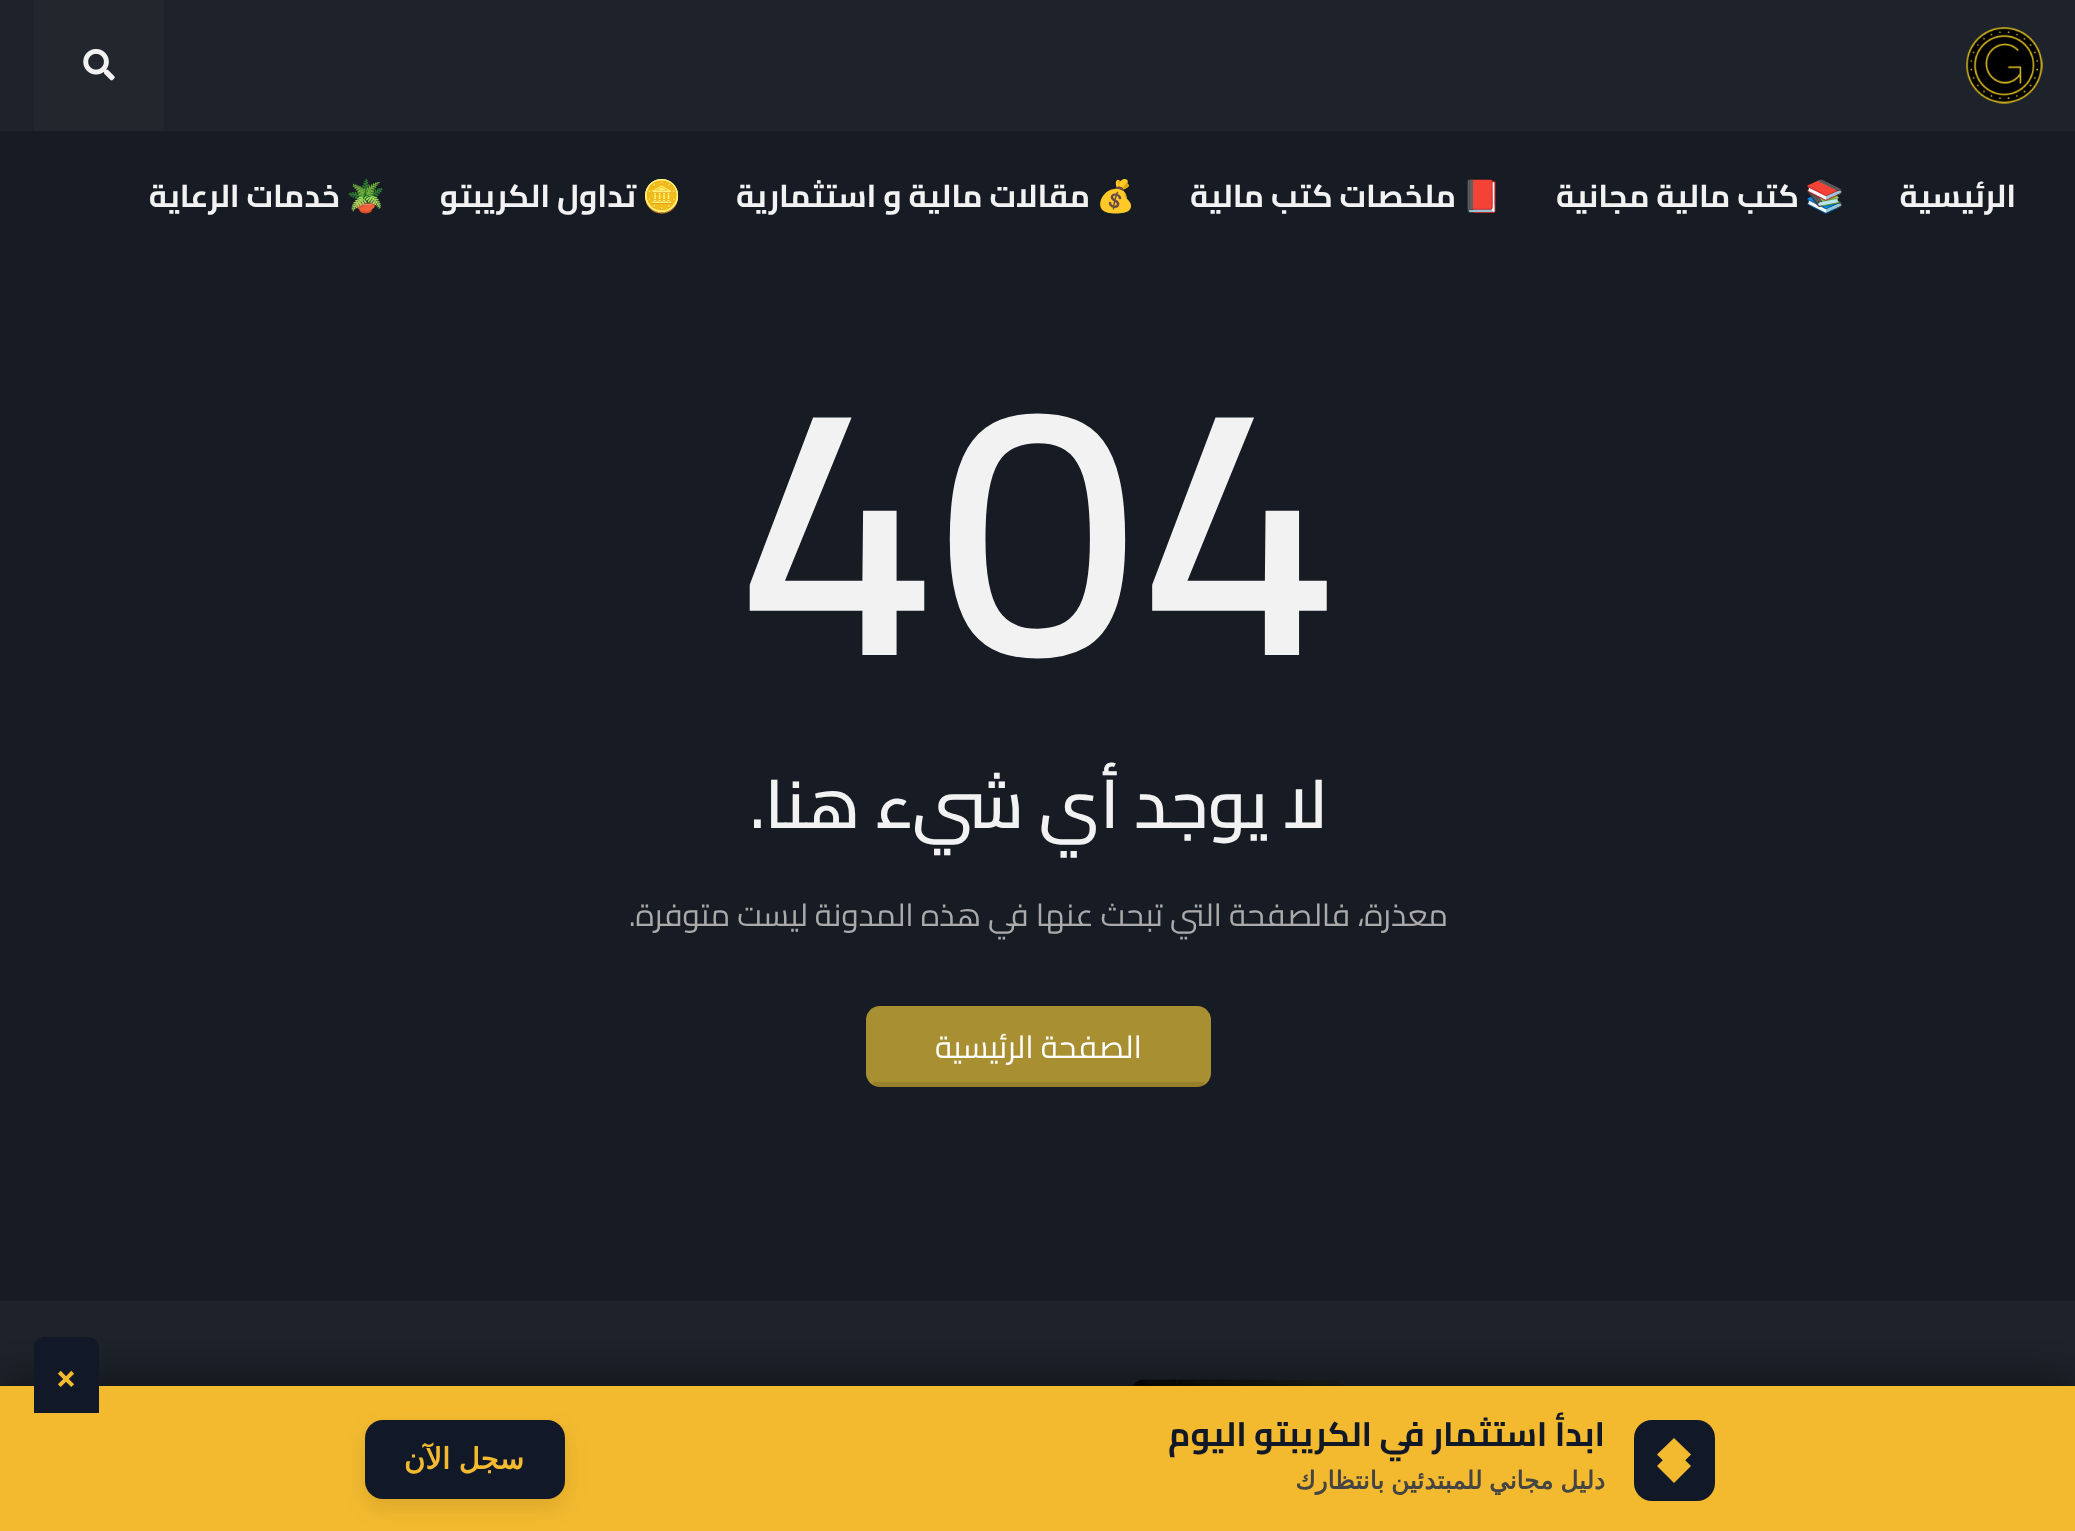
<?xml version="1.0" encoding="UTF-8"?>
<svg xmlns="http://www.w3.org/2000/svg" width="2075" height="1531">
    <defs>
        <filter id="blur1" x="-50%" y="-200%" width="200%" height="500%"><feGaussianBlur stdDeviation="22.5"/></filter>
        <filter id="blur2" x="-50%" y="-200%" width="200%" height="500%"><feGaussianBlur stdDeviation="11"/></filter>
    </defs>
    <rect width="100%" height="100%" fill="#171C24"/>
    <rect x="0" y="0" width="2075" height="131" fill="#1E232B"/>
    <image x="1966" y="27" width="77" height="77" href="img_01.png"/>
    <rect x="34" y="0" width="130" height="131" fill="#22272E"/>
    <image x="83" y="48" width="32" height="33" href="img_02.png"/>
    <text x="2016" y="207" font-family="Cairo" font-size="31.5" font-weight="700" direction="rtl" fill="#F2F2F2">الرئيسية</text>
    <text x="1845" y="207" font-family="Noto Color Emoji" font-size="31.5" font-weight="700" direction="rtl" fill="#F2F2F2">📚</text>
    <text x="1799" y="207" font-family="Cairo" font-size="31.5" font-weight="700" direction="rtl" fill="#F2F2F2">كتب مالية مجانية</text>
    <text x="1502" y="207" font-family="Noto Color Emoji" font-size="31.5" font-weight="700" direction="rtl" fill="#F2F2F2">📕</text>
    <text x="1456" y="207" font-family="Cairo" font-size="31.5" font-weight="700" direction="rtl" fill="#F2F2F2">ملخصات كتب مالية</text>
    <text x="1136" y="207" font-family="Noto Color Emoji" font-size="31.5" font-weight="700" direction="rtl" fill="#F2F2F2">💰</text>
    <text x="1090" y="207" font-family="Cairo" font-size="31.5" font-weight="700" direction="rtl" fill="#F2F2F2">مقالات مالية و استثمارية</text>
    <text x="682" y="207" font-family="Noto Color Emoji" font-size="31.5" font-weight="700" direction="rtl" fill="#F2F2F2">🪙</text>
    <text x="636" y="207" font-family="Cairo" font-size="31.5" font-weight="700" direction="rtl" fill="#F2F2F2">تداول الكريبتو</text>
    <text x="386" y="207" font-family="Noto Color Emoji" font-size="31.5" font-weight="700" direction="rtl" fill="#F2F2F2">🪴</text>
    <text x="340" y="207" font-family="Cairo" font-size="31.5" font-weight="700" direction="rtl" fill="#F2F2F2">خدمات الرعاية</text>
    <text x="736" y="655" font-family="Cairo" font-size="360" font-weight="600" fill="#F2F2F2">404</text>
    <text x="1327" y="828" font-family="Cairo" font-size="67.5" font-weight="600" direction="rtl" fill="#F2F2F2">لا يوجد أي شيء هنا.</text>
    <text x="1448" y="926" font-family="Cairo" font-size="31.5" direction="rtl" fill="#AAAAAA">معذرة، فالصفحة التي تبحث عنها في هذه المدونة ليست متوفرة.</text>
    <rect x="866" y="1006" width="345" height="81" rx="14" fill="#A88F32"/>
    <rect x="873" y="1082" width="331" height="5" fill="#000000" fill-opacity="0.1"/>
    <text x="1142" y="1058" font-family="Cairo" font-size="31.5" direction="rtl" fill="#FFFFFF">الصفحة الرئيسية</text>
    <rect x="0" y="1301" width="2075" height="85" fill="#1E232B"/>
    <rect x="1132" y="1379" width="216" height="144" rx="14" fill="#282D34"/>
    <image x="1133" y="1379" width="213" height="7" href="img_03.png"/>
    <rect x="0" y="1375" width="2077" height="146" fill="#000000" fill-opacity="0.4" filter="url(#blur1)"/>
    <rect x="0" y="1386" width="2075" height="145" fill="#F3BA2F"/>
    <path d="M 45 1337 H 88 C 94 1337 99 1342 99 1348 V 1413 H 34 V 1348 C 34 1342 39 1337 45 1337 Z" fill="#111827"/>
    <text x="56" y="1388" font-family="Cairo" font-size="36" font-weight="700" fill="#F3BA2F">×</text>
    <rect x="1634" y="1420" width="81" height="81" rx="18" fill="#111827"/>
    <path d="M 1674 1438 L 1657 1454.5 L 1674 1471.5 L 1691 1454.5 Z" fill="#F3BA2F"/>
    <path d="M 1674 1483 L 1691 1466 L 1674 1449 L 1657 1466 Z" fill="#F3BA2F"/>
    <text x="1605" y="1446" font-family="Cairo" font-size="33.75" font-weight="700" direction="rtl" fill="#111827">ابدأ استثمار في الكريبتو اليوم</text>
    <text x="1605" y="1489" word-spacing="-1" font-family="DejaVu Sans" font-size="24.75" font-weight="700" direction="rtl" fill="#444444">دليل مجاني للمبتدئين بانتظارك</text>
    <rect x="365" y="1429" width="200" height="79" rx="18" fill="#000000" fill-opacity="0.1" filter="url(#blur2)"/>
    <rect x="365" y="1420" width="200" height="79" rx="18" fill="#111827"/>
    <text x="524" y="1469" word-spacing="-1" font-family="DejaVu Sans" font-size="29.25" font-weight="700" direction="rtl" fill="#F3BA2F">سجل الآن</text>
</svg>
